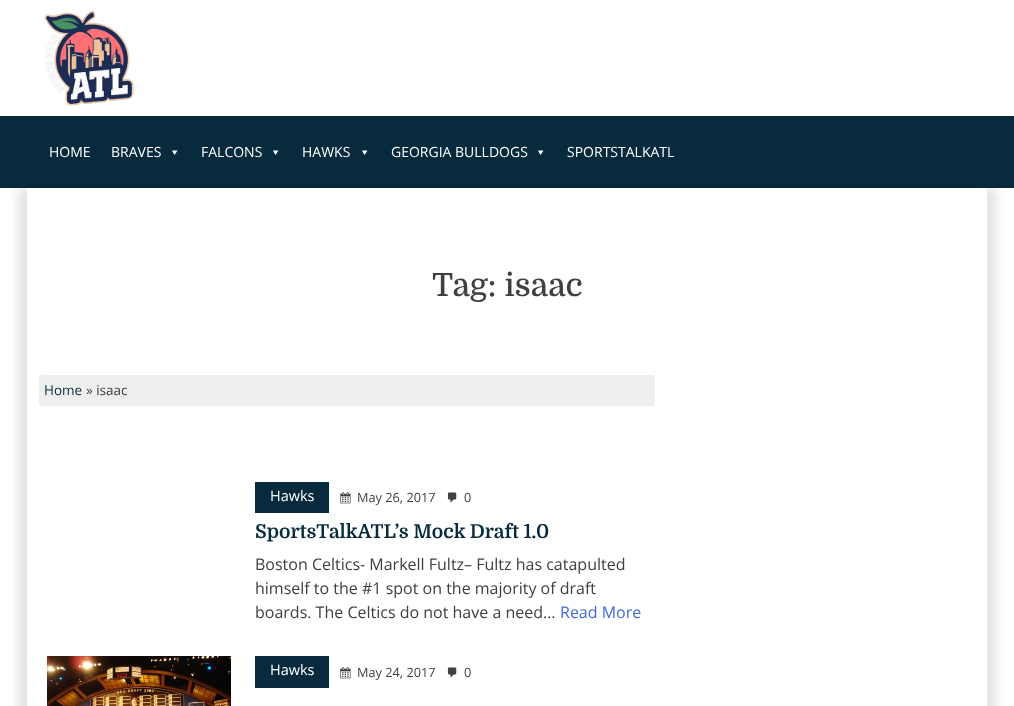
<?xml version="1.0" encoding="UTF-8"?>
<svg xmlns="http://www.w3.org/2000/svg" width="1014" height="706">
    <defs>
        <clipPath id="clip1"><path d="M 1 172 H 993 V 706 H 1 Z M 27 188 H 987 V 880 H 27 Z" clip-rule="evenodd"/></clipPath>
        <filter id="blur1" x="-50%" y="-200%" width="200%" height="500%"><feGaussianBlur stdDeviation="5"/></filter>
        <clipPath id="clip2"><path d="M 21 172 H 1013 V 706 H 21 Z M 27 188 H 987 V 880 H 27 Z" clip-rule="evenodd"/></clipPath>
    </defs>
    <rect width="100%" height="100%" fill="#FFFFFF"/>
    <image x="44" y="10" width="90" height="96" href="img_01.png"/>
    <rect x="0" y="116" width="1014" height="72" fill="#072B3D"/>
    <text x="49" y="157" font-family="Open Sans" font-size="14" fill="#FFFFFF">HOME</text>
    <text x="111" y="157" font-family="Open Sans" font-size="14" fill="#FFFFFF">BRAVES</text>
    <path d="M 177.5 150.5 L 174.5 155 L 172 150.5 Z" fill="#FFFFFF"/>
    <text x="201" y="157" font-family="Open Sans" font-size="14" fill="#FFFFFF">FALCONS</text>
    <path d="M 278.5 150.5 L 275.5 155 L 273 150.5 Z" fill="#FFFFFF"/>
    <text x="302" y="157" font-family="Open Sans" font-size="14" fill="#FFFFFF">HAWKS</text>
    <path d="M 367.5 150.5 L 364.5 155 L 362 150.5 Z" fill="#FFFFFF"/>
    <text x="391" y="157" font-family="Open Sans" font-size="14" fill="#FFFFFF">GEORGIA BULLDOGS</text>
    <path d="M 543.5 150.5 L 540.5 155 L 538 150.5 Z" fill="#FFFFFF"/>
    <text x="567" y="157" font-family="Open Sans" font-size="14" fill="#FFFFFF">SPORTSTALKATL</text>
    <g clip-path="url(#clip1)">
        <rect x="17" y="188" width="960" height="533" fill="#000000" fill-opacity="0.1" filter="url(#blur1)"/>
    </g>
    <g clip-path="url(#clip2)">
        <rect x="37" y="188" width="960" height="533" fill="#000000" fill-opacity="0.1" filter="url(#blur1)"/>
    </g>
    <text x="432" y="296" font-family="Domine" font-size="32" font-weight="500" fill="#404040">Tag: isaac</text>
    <rect x="39" y="375" width="616" height="31" rx="3" fill="#EEEEEE"/>
    <text x="44" y="395" font-family="Open Sans" font-size="13.5" fill="#072B3D">Home</text>
    <text x="86" y="395" font-family="Open Sans" font-size="13.5" fill="#404040">» isaac</text>
    <rect x="255" y="482" width="74" height="31" fill="#072B3D"/>
    <text x="270" y="501" font-family="Open Sans" font-size="14.5" fill="#FFFFFF">Hawks</text>
    <image x="340" y="492" width="11" height="12" href="img_02.png"/>
    <text x="357" y="502" font-family="Open Sans" font-size="12.75" fill="#404040">May 26, 2017</text>
    <image x="447" y="492" width="10" height="11" href="img_03.png"/>
    <text x="464" y="502" font-family="Open Sans" font-size="12.75" fill="#404040">0</text>
    <text x="255" y="538" font-family="Domine" font-size="19.25" font-weight="700" fill="#072B3D">SportsTalkATL’s Mock Draft 1.0</text>
    <text font-family="Open Sans" font-size="16" fill="#404040">
        <tspan x="255" y="570">Boston Celtics- Markell Fultz– Fultz has catapulted</tspan>
        <tspan x="255" y="594">himself to the #1 spot on the majority of draft</tspan>
        <tspan x="255" y="618">boards. The Celtics do not have a need…</tspan>
    </text>
    <text x="560" y="618" font-family="Open Sans" font-size="16" fill="#4169E1">Read More</text>
    <image x="47" y="656" width="184" height="50" href="img_04.png"/>
    <rect x="255" y="656" width="74" height="32" fill="#072B3D"/>
    <text x="270" y="675" font-family="Open Sans" font-size="14.5" fill="#FFFFFF">Hawks</text>
    <image x="340" y="667" width="11" height="12" href="img_02.png"/>
    <text x="357" y="677" font-family="Open Sans" font-size="12.75" fill="#404040">May 24, 2017</text>
    <image x="447" y="667" width="10" height="11" href="img_03.png"/>
    <text x="464" y="677" font-family="Open Sans" font-size="12.75" fill="#404040">0</text>
</svg>
